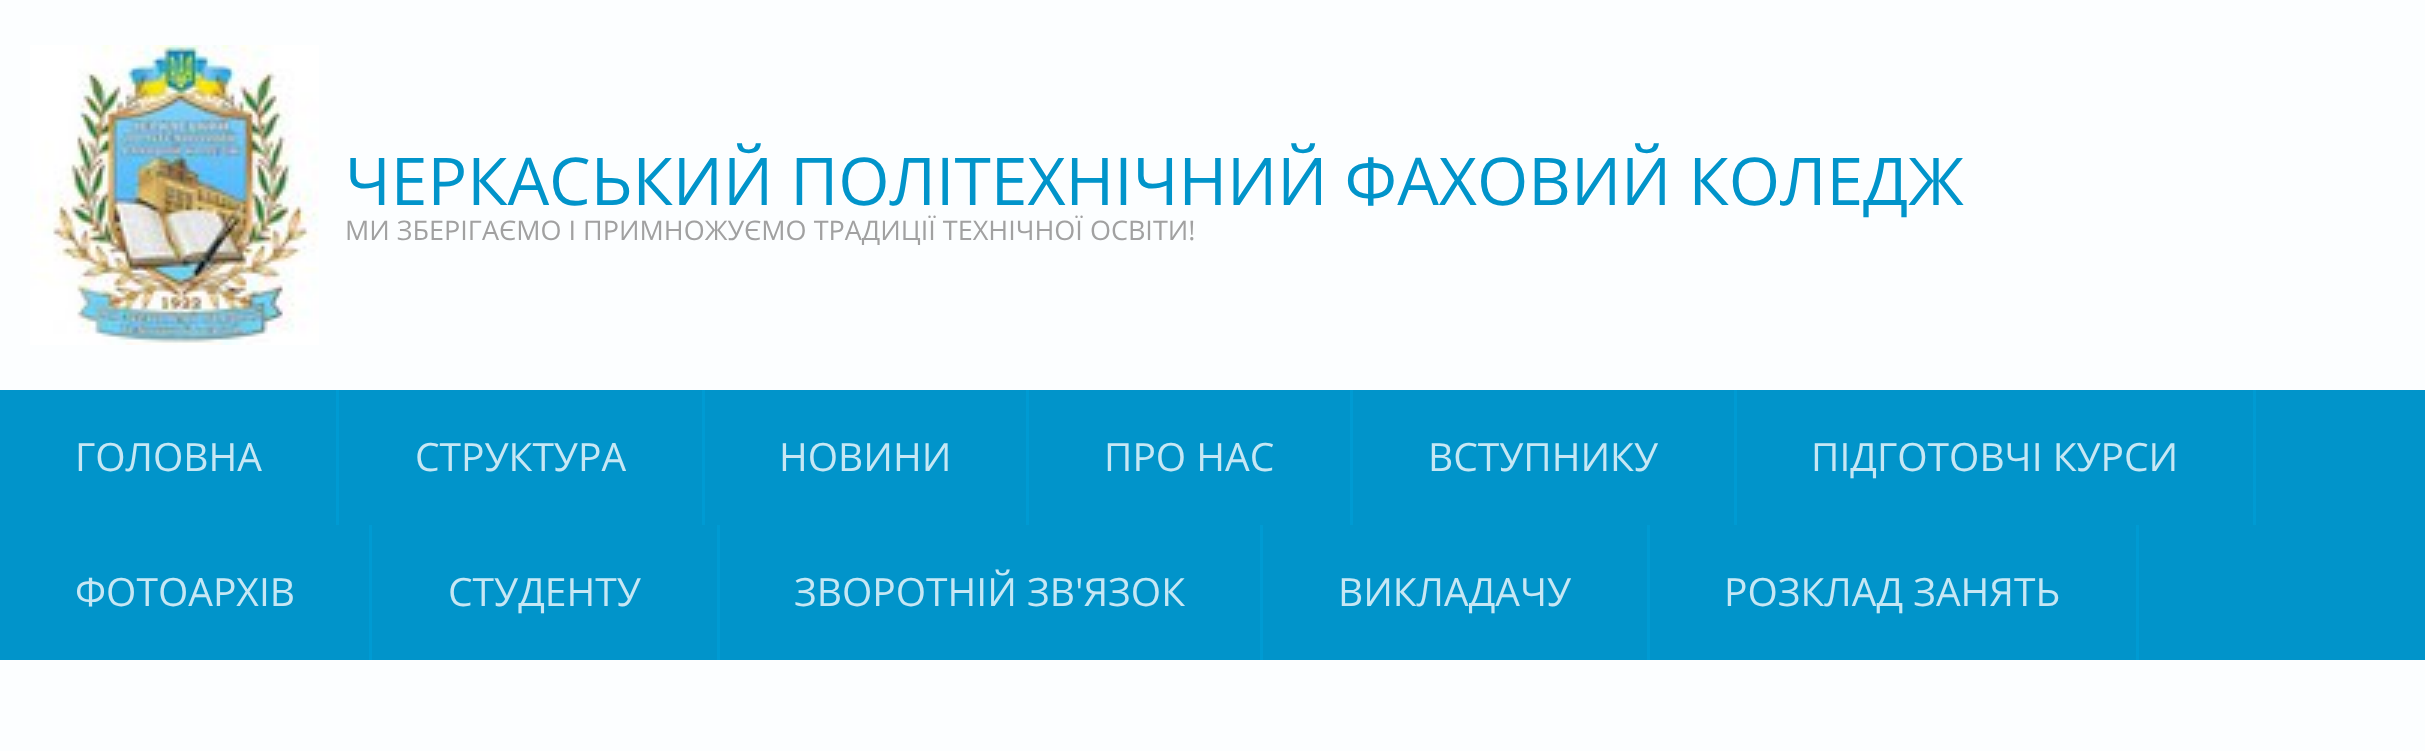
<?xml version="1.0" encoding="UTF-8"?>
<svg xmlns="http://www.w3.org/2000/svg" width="2425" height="751">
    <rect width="100%" height="100%" fill="#FCFEFF"/>
    <image x="30" y="45" width="289" height="300" href="img_01.png"/>
    <text x="345" y="205" font-family="Open Sans" font-size="66" fill="#0194CA">ЧЕРКАСЬКИЙ ПОЛІТЕХНІЧНИЙ ФАХОВИЙ КОЛЕДЖ</text>
    <text x="345" y="240" font-family="Open Sans" font-size="27" fill="#A1A1A1">МИ ЗБЕРІГАЄМО І ПРИМНОЖУЄМО ТРАДИЦІЇ ТЕХНІЧНОЇ ОСВІТИ!</text>
    <rect x="0" y="390" width="2425" height="270" fill="#0194CA"/>
    <rect x="336" y="390" width="3" height="135" fill="#009BD3"/>
    <text x="75" y="471" font-family="Open Sans" font-size="39" fill="#C6E7F4">ГОЛОВНА</text>
    <rect x="702" y="390" width="3" height="135" fill="#009BD3"/>
    <text x="415" y="471" font-family="Open Sans" font-size="39" fill="#C6E7F4">СТРУКТУРА</text>
    <rect x="1026" y="390" width="3" height="135" fill="#009BD3"/>
    <text x="779" y="471" font-family="Open Sans" font-size="39" fill="#C6E7F4">НОВИНИ</text>
    <rect x="1350" y="390" width="3" height="135" fill="#009BD3"/>
    <text x="1104" y="471" font-family="Open Sans" font-size="39" fill="#C6E7F4">ПРО НАС</text>
    <rect x="1734" y="390" width="3" height="135" fill="#009BD3"/>
    <text x="1428" y="471" font-family="Open Sans" font-size="39" fill="#C6E7F4">ВСТУПНИКУ</text>
    <rect x="2253" y="390" width="3" height="135" fill="#009BD3"/>
    <text x="1811" y="471" font-family="Open Sans" font-size="39" fill="#C6E7F4">ПІДГОТОВЧІ КУРСИ</text>
    <rect x="369" y="525" width="3" height="135" fill="#009BD3"/>
    <text x="75" y="606" font-family="Open Sans" font-size="39" fill="#C6E7F4">ФОТОАРХІВ</text>
    <rect x="717" y="525" width="3" height="135" fill="#009BD3"/>
    <text x="448" y="606" font-family="Open Sans" font-size="39" fill="#C6E7F4">СТУДЕНТУ</text>
    <rect x="1260" y="525" width="3" height="135" fill="#009BD3"/>
    <text x="794" y="606" font-family="Open Sans" font-size="39" fill="#C6E7F4">ЗВОРОТНІЙ ЗВ'ЯЗОК</text>
    <rect x="1647" y="525" width="3" height="135" fill="#009BD3"/>
    <text x="1338" y="606" font-family="Open Sans" font-size="39" fill="#C6E7F4">ВИКЛАДАЧУ</text>
    <rect x="2136" y="525" width="3" height="135" fill="#009BD3"/>
    <text x="1724" y="606" font-family="Open Sans" font-size="39" fill="#C6E7F4">РОЗКЛАД ЗАНЯТЬ</text>
</svg>
